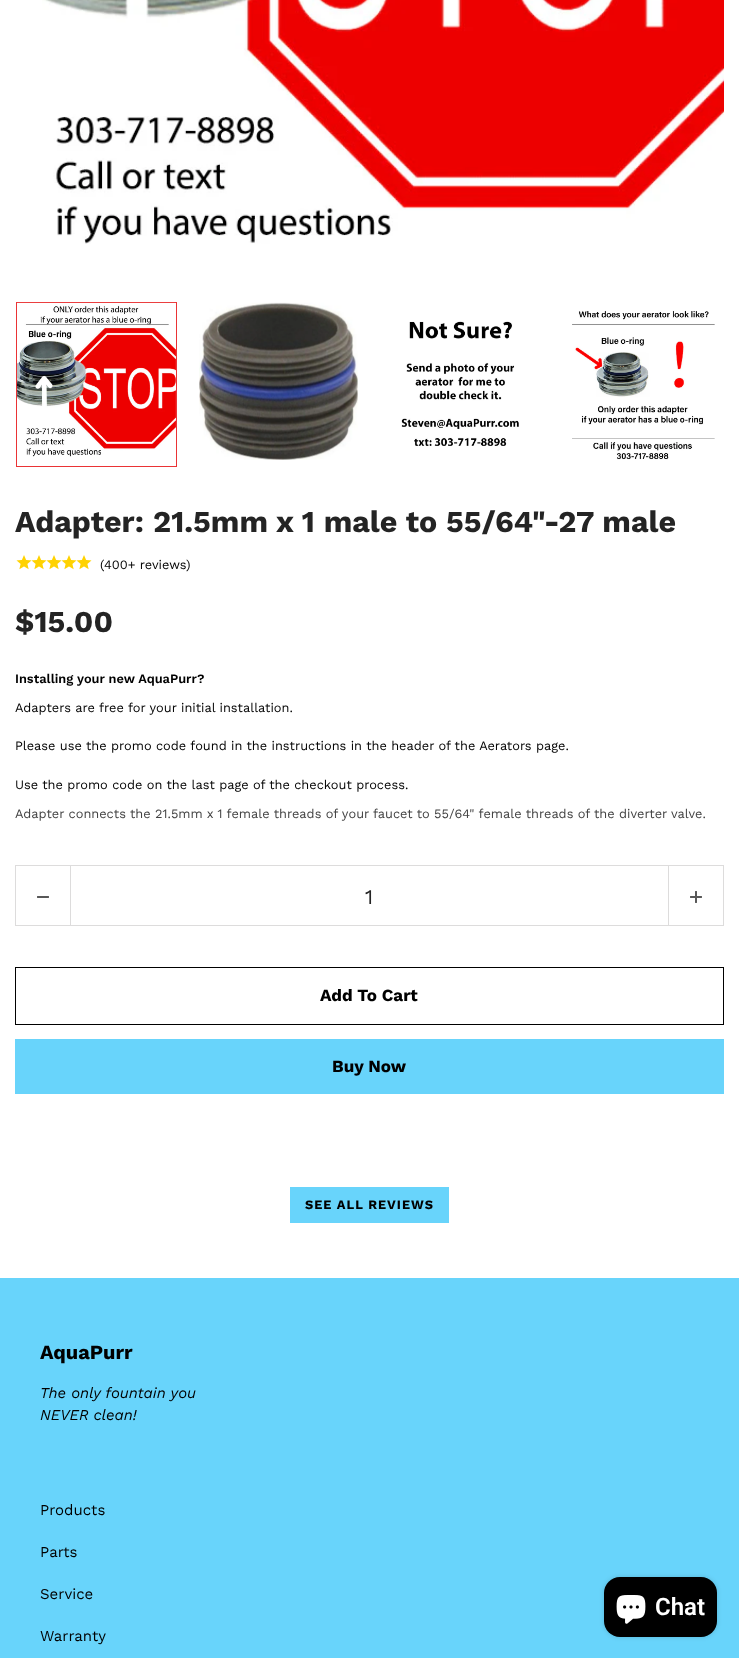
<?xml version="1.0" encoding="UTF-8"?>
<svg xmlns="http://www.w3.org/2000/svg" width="739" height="1658">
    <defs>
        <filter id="blur1" x="-50%" y="-200%" width="200%" height="500%"><feGaussianBlur stdDeviation="2.5"/></filter>
    </defs>
    <rect width="100%" height="100%" fill="#FFFFFF"/>
    <image x="42" y="0" width="682" height="244" href="img_01.png"/>
    <rect x="16.5" y="302.5" width="160" height="164" fill="none" stroke="#EA3335"/>
    <image x="17" y="302" width="159" height="155" href="img_02.png"/>
    <image x="199" y="302" width="159" height="158" href="img_03.png"/>
    <image x="401" y="321" width="118" height="125" href="img_04.png"/>
    <image x="572" y="310" width="143" height="150" href="img_05.png"/>
    <text x="15" y="532" font-family="Work Sans" font-size="30.4" font-weight="700" fill="#242424">Adapter: 21.5mm x 1 male to 55/64"-27 male</text>
    <image x="16" y="555" width="16" height="15" href="img_06.png"/>
    <image x="31" y="555" width="16" height="15" href="img_07.png"/>
    <image x="46" y="555" width="16" height="15" href="img_07.png"/>
    <image x="61" y="555" width="16" height="15" href="img_07.png"/>
    <image x="76" y="555" width="16" height="15" href="img_07.png"/>
    <text x="100" y="569" font-family="Work Sans" font-size="12.8" fill="#000000">(400+ reviews)</text>
    <text x="15" y="632" font-family="Work Sans" font-size="30.4" font-weight="700" fill="#242424">$15.00</text>
    <text x="15" y="683" font-family="Work Sans" font-size="12.8" font-weight="600" fill="#000000">Installing your new AquaPurr?</text>
    <text x="15" y="712" font-family="Work Sans" font-size="12.8" fill="#000000">Adapters are free for your initial installation.</text>
    <text x="15" y="750" font-family="Work Sans" font-size="12.8" fill="#000000">Please use the promo code found in the instructions in the header of the Aerators page.</text>
    <text x="15" y="789" font-family="Work Sans" font-size="12.8" fill="#000000">Use the promo code on the last page of the checkout process.</text>
    <text x="15" y="818" font-family="Work Sans" font-size="12.8" fill="#424242">Adapter connects the 21.5mm x 1 female threads of your faucet to 55/64" female threads of the diverter valve.</text>
    <rect x="15.5" y="865.5" width="708" height="60" fill="none" stroke="#DDDCDC"/>
    <rect x="70" y="866" width="1" height="59" fill="#DDDCDC"/>
    <image x="37" y="896" width="12" height="2" href="img_08.png"/>
    <text x="365" y="904" font-family="Work Sans" font-size="21" fill="#242424">1</text>
    <rect x="668" y="866" width="1" height="59" fill="#DDDCDC"/>
    <image x="690" y="891" width="12" height="12" href="img_09.png"/>
    <rect x="15.5" y="967.5" width="708" height="57" fill="none" stroke="#000000"/>
    <text x="320" y="1001" font-family="Work Sans" font-size="17" font-weight="700" fill="#000000">Add To Cart</text>
    <rect x="15" y="1039" width="709" height="55" fill="#68D4FB"/>
    <text x="332" y="1072" font-family="Work Sans" font-size="17" font-weight="700" fill="#000000">Buy Now</text>
    <rect x="290" y="1187" width="159" height="36" fill="#68D4FB"/>
    <text x="305" y="1209" font-family="Work Sans" font-size="12.8" font-weight="700" letter-spacing="1" fill="#000000">SEE ALL REVIEWS</text>
    <rect x="0" y="1278" width="739" height="380" fill="#68D4FB"/>
    <text x="40" y="1359" font-family="Work Sans" font-size="20" font-weight="700" fill="#000000">AquaPurr</text>
    <text font-family="Work Sans" font-size="15" font-style="italic" fill="#000000">
        <tspan x="40" y="1398">The only fountain you</tspan>
        <tspan x="40" y="1420">NEVER clean!</tspan>
    </text>
    <text x="40" y="1515" font-family="Work Sans" font-size="15" fill="#000000">Products</text>
    <text x="40" y="1557" font-family="Work Sans" font-size="15" fill="#000000">Parts</text>
    <text x="40" y="1599" font-family="Work Sans" font-size="15" fill="#000000">Service</text>
    <text x="40" y="1641" font-family="Work Sans" font-size="15" fill="#000000">Warranty</text>
    <rect x="604" y="1577" width="113" height="60" rx="16" fill="#000000" fill-opacity="0.15" filter="url(#blur1)"/>
    <rect x="604" y="1577" width="113" height="60" rx="16" fill="#000000"/>
    <image x="616" y="1595" width="30" height="29" href="img_10.png"/>
    <text x="655" y="1615" font-family="Roboto" font-size="24" font-weight="600" fill="#FFFFFF">Chat</text>
</svg>
